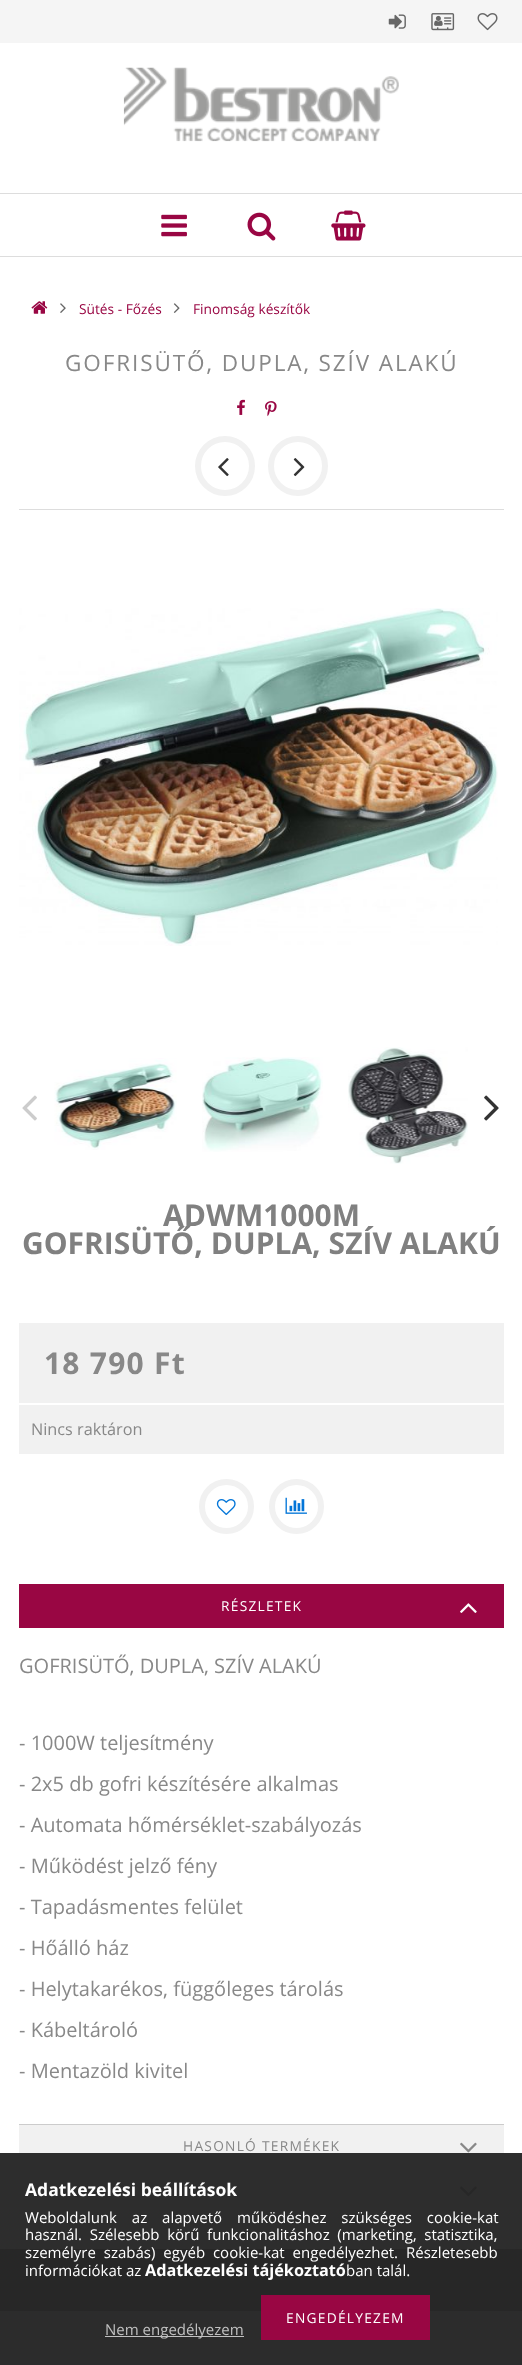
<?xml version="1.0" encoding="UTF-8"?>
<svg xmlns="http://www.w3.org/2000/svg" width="522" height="2365">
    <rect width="100%" height="100%" fill="#FFFFFF"/>
    <rect x="0" y="2153" width="522" height="96" fill="#2D2D2D"/>
    <rect x="0" y="0" width="522" height="43" fill="#F5F5F5"/>
    <image x="388" y="14" width="18" height="15" href="img_01.png"/>
    <image x="431" y="13" width="24" height="18" href="img_02.png"/>
    <image x="477" y="13" width="21" height="18" href="img_03.png"/>
    <image x="123" y="67" width="276" height="75" href="img_04.png"/>
    <rect x="0" y="193" width="522" height="1" fill="#DDDDDD"/>
    <rect x="0" y="256" width="522" height="1" fill="#DDDDDD"/>
    <image x="161" y="214" width="26" height="23" href="img_05.png"/>
    <image x="247" y="212" width="29" height="29" href="img_06.png"/>
    <image x="331" y="210" width="35" height="31" href="img_07.png"/>
    <image x="31" y="301" width="17" height="13" href="img_08.png"/>
    <image x="60" y="303" width="6" height="10" href="img_09.png"/>
    <text x="79" y="314" font-family="Open Sans" font-size="13.75" fill="#990643">Sütés - Főzés</text>
    <image x="173" y="303" width="7" height="10" href="img_10.png"/>
    <text x="193" y="314" font-family="Open Sans" font-size="13.75" fill="#990643">Finomság készítők</text>
    <rect x="19" y="509" width="485" height="1" fill="#DDDDDD"/>
    <text x="65" y="371" font-family="Open Sans" font-size="22.5" letter-spacing="1.9" fill="#888888">GOFRISÜTŐ, DUPLA, SZÍV ALAKÚ</text>
    <image x="237" y="399" width="8" height="16" href="img_11.png"/>
    <image x="265" y="401" width="12" height="16" href="img_12.png"/>
    <circle cx="225" cy="466" r="27" fill="none" stroke="#F1F1F1" stroke-width="6"/>
    <image x="218" y="458" width="11" height="19" href="img_13.png"/>
    <circle cx="298" cy="466" r="27" fill="none" stroke="#F1F1F1" stroke-width="6"/>
    <image x="293" y="458" width="12" height="19" href="img_14.png"/>
    <image x="19" y="608" width="479" height="338" href="img_15.png"/>
    <image x="22" y="1095" width="15" height="26" href="img_16.png"/>
    <image x="54" y="1058" width="123" height="92" href="img_17.png"/>
    <image x="202" y="1057" width="121" height="95" href="img_18.png"/>
    <image x="348" y="1047" width="120" height="117" href="img_19.png"/>
    <image x="484" y="1095" width="15" height="26" href="img_20.png"/>
    <text x="163" y="1226" font-family="Open Sans" font-size="30" font-weight="700" fill="#808080">ADWM1000M</text>
    <text x="22" y="1254" font-family="Open Sans" font-size="30" font-weight="700" fill="#808080">GOFRISÜTŐ, DUPLA, SZÍV ALAKÚ</text>
    <rect x="19" y="1323" width="485" height="80" fill="#F1F1F1"/>
    <text x="44" y="1374" font-family="Open Sans" font-size="30" font-weight="700" letter-spacing="1.25" fill="#888888">18 790 Ft</text>
    <rect x="19" y="1405" width="485" height="49" fill="#F1F1F1"/>
    <text x="31" y="1435" font-family="Open Sans" font-size="16.25" fill="#888888">Nincs raktáron</text>
    <circle cx="226.5" cy="1506.5" r="24.5" fill="none" stroke="#F1F1F1" stroke-width="6"/>
    <image x="216" y="1499" width="20" height="16" href="img_21.png"/>
    <circle cx="296.5" cy="1506.5" r="24.5" fill="none" stroke="#F1F1F1" stroke-width="6"/>
    <image x="285" y="1497" width="22" height="17" href="img_22.png"/>
    <rect x="19" y="1584" width="485" height="44" fill="#990643"/>
    <text x="221" y="1611" font-family="Open Sans" font-size="13.75" letter-spacing="1.25" fill="#FFFFFF">RÉSZLETEK</text>
    <image x="460" y="1603" width="17" height="10" href="img_23.png"/>
    <text x="19" y="1673" font-family="Open Sans" font-size="20" fill="#888888">GOFRISÜTŐ, DUPLA, SZÍV ALAKÚ</text>
    <text x="19" y="1750" font-family="Open Sans" font-size="20" fill="#888888">- 1000W teljesítmény</text>
    <text x="19" y="1791" font-family="Open Sans" font-size="20" fill="#888888">- 2x5 db gofri készítésére alkalmas</text>
    <text x="19" y="1832" font-family="Open Sans" font-size="20" fill="#888888">- Automata hőmérséklet-szabályozás</text>
    <text x="19" y="1873" font-family="Open Sans" font-size="20" fill="#888888">- Működést jelző fény</text>
    <text x="19" y="1914" font-family="Open Sans" font-size="20" fill="#888888">- Tapadásmentes felület</text>
    <text x="19" y="1955" font-family="Open Sans" font-size="20" fill="#888888">- Hőálló ház</text>
    <text x="19" y="1996" font-family="Open Sans" font-size="20" fill="#888888">- Helytakarékos, függőleges tárolás</text>
    <text x="19" y="2037" font-family="Open Sans" font-size="20" fill="#888888">- Kábeltároló</text>
    <text x="19" y="2078" font-family="Open Sans" font-size="20" fill="#888888">- Mentazöld kivitel</text>
    <rect x="19" y="2125" width="485" height="28" fill="#F1F1F1"/>
    <rect x="19" y="2124" width="485" height="1" fill="#CCCCCC"/>
    <text x="183" y="2151" font-family="Open Sans" font-size="13.75" letter-spacing="1.25" fill="#888888">HASONLÓ TERMÉKEK</text>
    <image x="460" y="2142" width="17" height="11" href="img_24.png"/>
    <image x="460" y="2186" width="17" height="11" href="img_25.png"/>
    <rect x="0" y="2249" width="522" height="62" fill="#272727"/>
    <rect x="0" y="2311" width="522" height="54" fill="#2C2C2C"/>
    <text x="25" y="2196" font-family="Open Sans" font-size="17.5" font-weight="700" fill="#FFFFFF">Adatkezelési beállítások</text>
    <text font-family="Open Sans" font-size="15" fill="#FFFFFF">
        <tspan x="25" y="2223" word-spacing="11">Weboldalunk az alapvető működéshez szükséges cookie-kat</tspan>
        <tspan x="25" y="2240" word-spacing="3.75">használ. Szélesebb körű funkcionalitáshoz (marketing, statisztika,</tspan>
        <tspan x="25" y="2258" word-spacing="4">személyre szabás) egyéb cookie-kat engedélyezhet. Részletesebb</tspan>
        <tspan x="25" y="2276">információkat az</tspan>
    </text>
    <text x="145" y="2276" font-family="Open Sans" font-size="16.25" font-weight="700" fill="#FFFFFF">Adatkezelési tájékoztató</text>
    <text x="346" y="2276" font-family="Open Sans" font-size="15" fill="#FFFFFF">ban talál.</text>
    <rect x="261" y="2295" width="169" height="45" fill="#990643"/>
    <text x="286" y="2323" font-family="Open Sans" font-size="13.75" letter-spacing="1.25" fill="#FFFFFF">ENGEDÉLYEZEM</text>
    <rect x="105" y="2336" width="139" height="1" fill="#FFFFFF" fill-opacity="0.7"/>
    <text x="105" y="2335" font-family="Open Sans" font-size="15" fill="#C0C0C0">Nem engedélyezem</text>
</svg>
